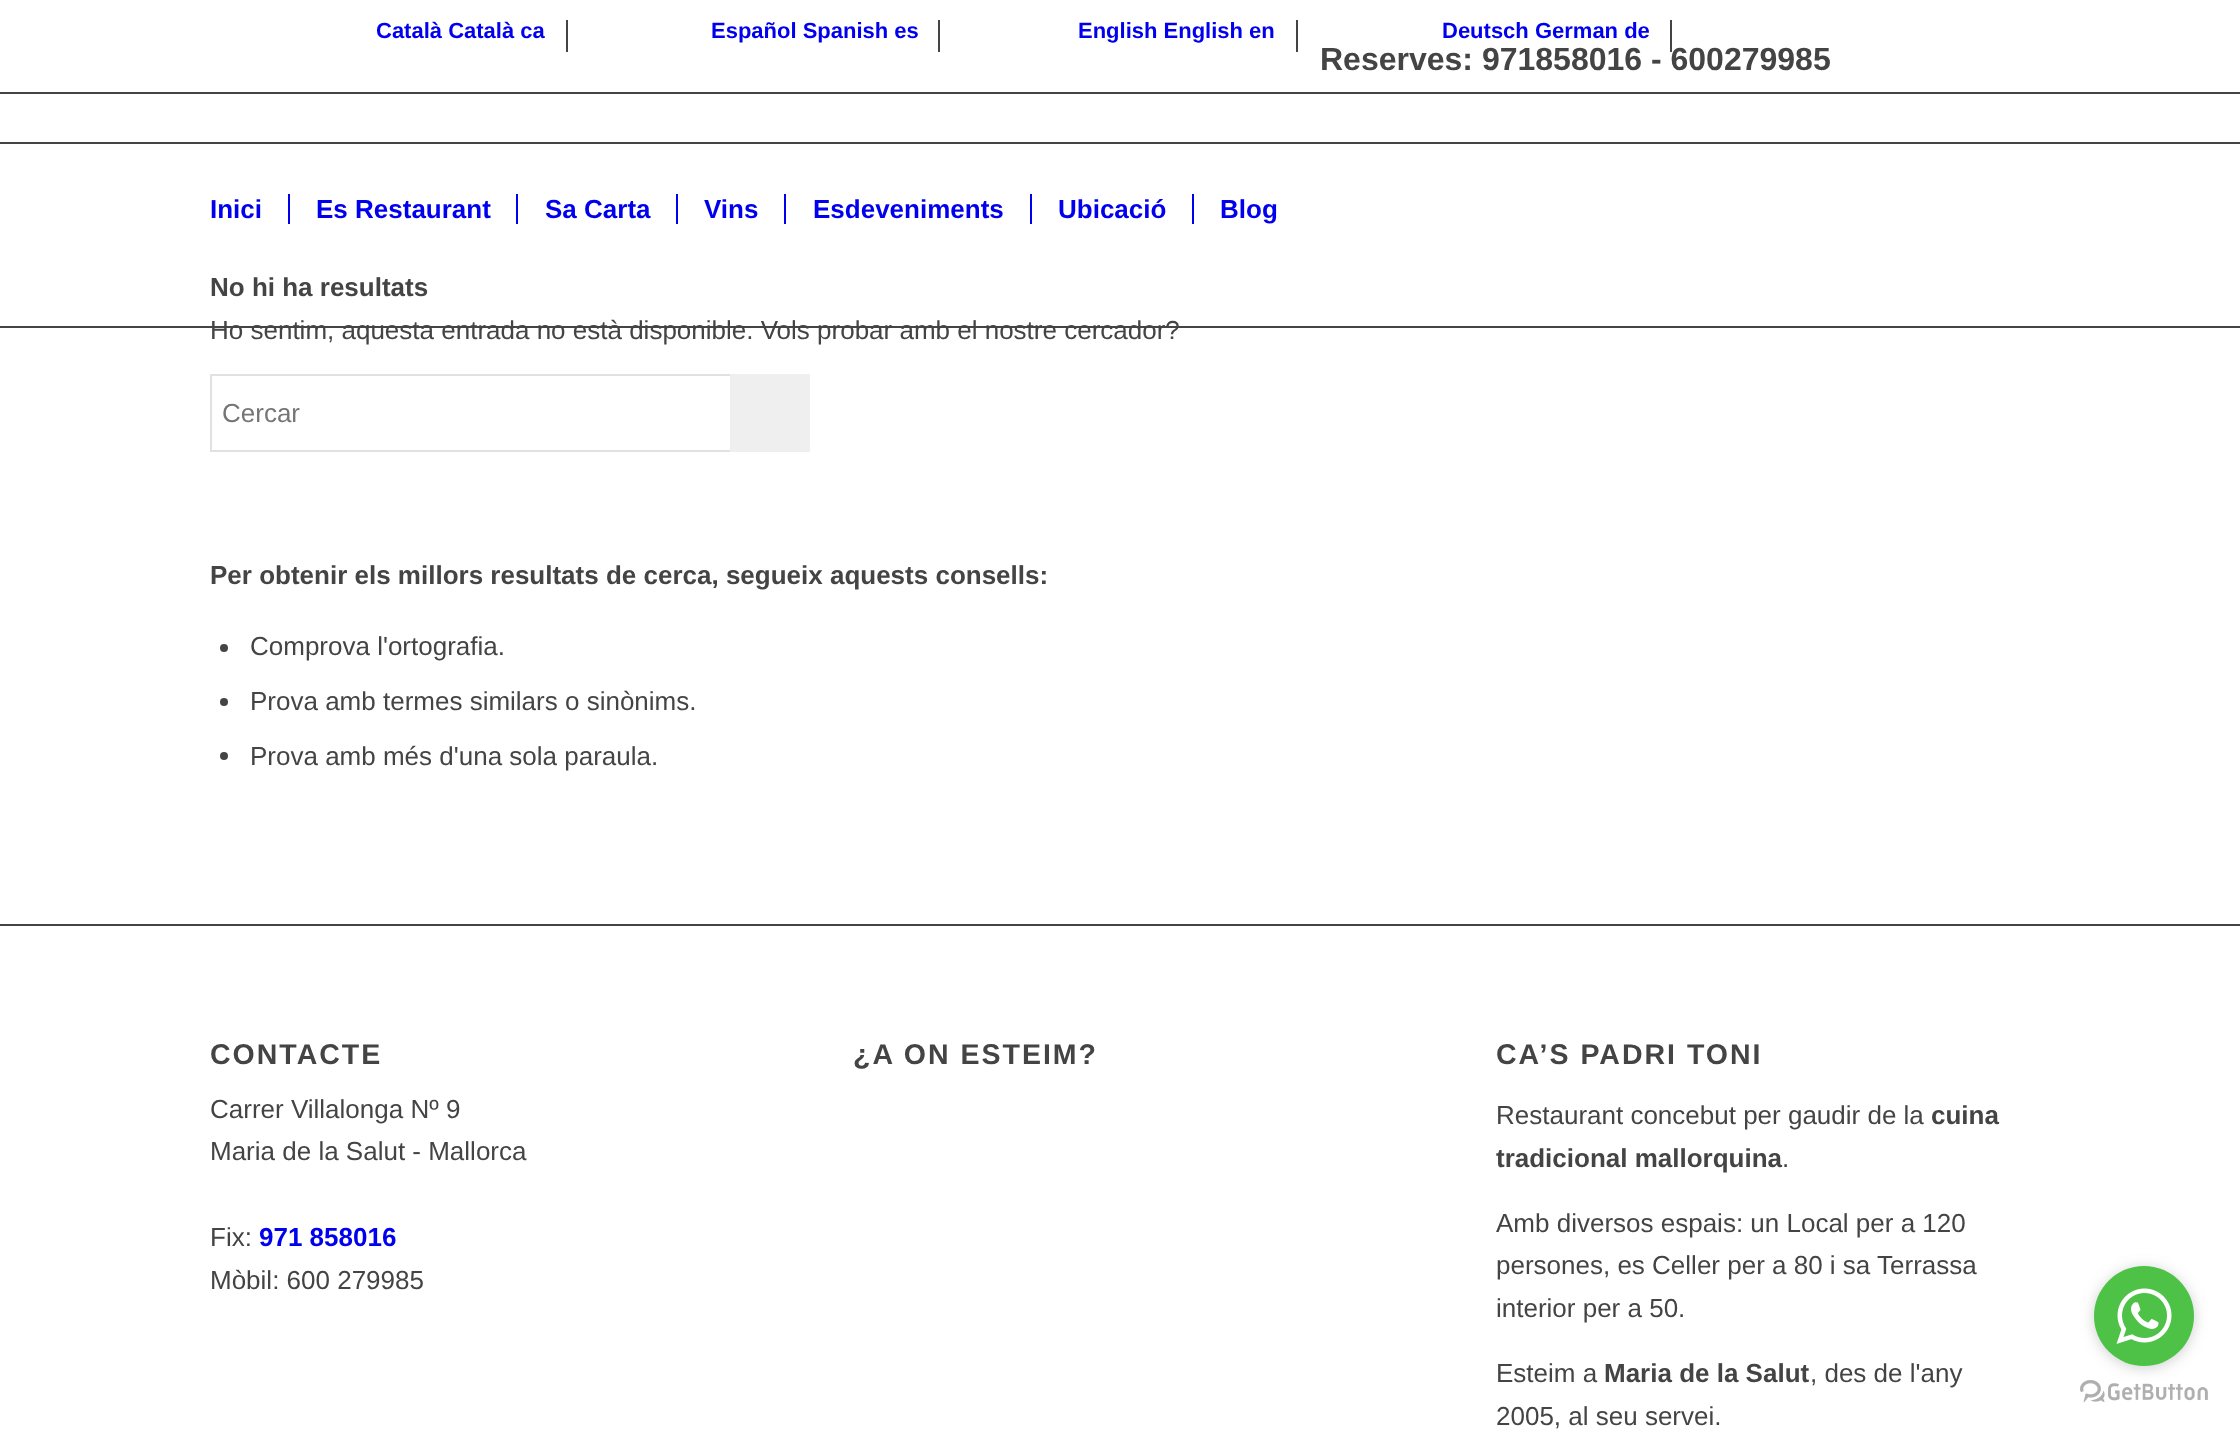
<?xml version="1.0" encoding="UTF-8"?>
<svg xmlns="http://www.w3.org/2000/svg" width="2240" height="1433">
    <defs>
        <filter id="blur1" x="-50%" y="-200%" width="200%" height="500%"><feGaussianBlur stdDeviation="7"/></filter>
    </defs>
    <rect width="100%" height="100%" fill="#FFFFFF"/>
    <rect x="566" y="20" width="2" height="32" fill="#444444"/>
    <text x="376" y="38" font-family="Liberation Sans" font-size="22" font-weight="700" fill="#0000EE">Català Català ca</text>
    <rect x="938" y="20" width="2" height="32" fill="#444444"/>
    <text x="711" y="38" font-family="Liberation Sans" font-size="22" font-weight="700" fill="#0000EE">Español Spanish es</text>
    <rect x="1296" y="20" width="2" height="32" fill="#444444"/>
    <text x="1078" y="38" font-family="Liberation Sans" font-size="22" font-weight="700" fill="#0000EE">English English en</text>
    <rect x="1670" y="20" width="2" height="32" fill="#444444"/>
    <text x="1442" y="38" font-family="Liberation Sans" font-size="22" font-weight="700" fill="#0000EE">Deutsch German de</text>
    <text x="1320" y="70" font-family="Liberation Sans" font-size="32" font-weight="700" fill="#444444">Reserves: 971858016 - 600279985</text>
    <rect x="0" y="92" width="2240" height="2" fill="#444444"/>
    <rect x="0" y="326" width="2240" height="2" fill="#444444"/>
    <text x="210" y="218" font-family="Liberation Sans" font-size="26" font-weight="700" fill="#0000EE">Inici</text>
    <text x="316" y="218" font-family="Liberation Sans" font-size="26" font-weight="700" fill="#0000EE">Es Restaurant</text>
    <rect x="288" y="194" width="2" height="30" fill="#0000EE"/>
    <text x="545" y="218" font-family="Liberation Sans" font-size="26" font-weight="700" fill="#0000EE">Sa Carta</text>
    <rect x="516" y="194" width="2" height="30" fill="#0000EE"/>
    <text x="704" y="218" font-family="Liberation Sans" font-size="26" font-weight="700" fill="#0000EE">Vins</text>
    <rect x="676" y="194" width="2" height="30" fill="#0000EE"/>
    <text x="813" y="218" font-family="Liberation Sans" font-size="26" font-weight="700" fill="#0000EE">Esdeveniments</text>
    <rect x="784" y="194" width="2" height="30" fill="#0000EE"/>
    <text x="1058" y="218" font-family="Liberation Sans" font-size="26" font-weight="700" fill="#0000EE">Ubicació</text>
    <rect x="1030" y="194" width="2" height="30" fill="#0000EE"/>
    <text x="1220" y="218" font-family="Liberation Sans" font-size="26" font-weight="700" fill="#0000EE">Blog</text>
    <rect x="1192" y="194" width="2" height="30" fill="#0000EE"/>
    <rect x="0" y="142" width="2240" height="2" fill="#444444"/>
    <text x="210" y="296" font-family="Liberation Sans" font-size="26" font-weight="700" fill="#444444">No hi ha resultats</text>
    <text x="210" y="339" font-family="Liberation Sans" font-size="26" fill="#444444">Ho sentim, aquesta entrada no està disponible. Vols probar amb el nostre cercador?</text>
    <rect x="211" y="375" width="598" height="76" fill="none" stroke="#E1E1E1" stroke-width="2"/>
    <text x="222" y="422" font-family="Liberation Sans" font-size="26" fill="#757575">Cercar</text>
    <rect x="730" y="374" width="80" height="78" fill="#EFEFEF"/>
    <text x="210" y="584" font-family="Liberation Sans" font-size="26" font-weight="700" fill="#444444">Per obtenir els millors resultats de cerca, segueix aquests consells:</text>
    <circle cx="224" cy="648" r="4" fill="#444444"/>
    <text x="250" y="655" font-family="Liberation Sans" font-size="26" fill="#444444">Comprova l'ortografia.</text>
    <circle cx="224" cy="702" r="4" fill="#444444"/>
    <text x="250" y="710" font-family="Liberation Sans" font-size="26" fill="#444444">Prova amb termes similars o sinònims.</text>
    <circle cx="224" cy="756" r="4" fill="#444444"/>
    <text x="250" y="765" font-family="Liberation Sans" font-size="26" fill="#444444">Prova amb més d'una sola paraula.</text>
    <rect x="0" y="924" width="2240" height="2" fill="#444444"/>
    <text x="210" y="1064" font-family="Liberation Sans" font-size="28.5" font-weight="700" letter-spacing="2" fill="#444444">CONTACTE</text>
    <text font-family="Liberation Sans" font-size="26" fill="#444444">
        <tspan x="210" y="1118">Carrer Villalonga Nº 9</tspan>
        <tspan x="210" y="1160">Maria de la Salut - Mallorca</tspan>
    </text>
    <text x="210" y="1246" font-family="Liberation Sans" font-size="26" fill="#444444">Fix:</text>
    <text x="259" y="1246" font-family="Liberation Sans" font-size="26" font-weight="700" fill="#0000EE">971 858016</text>
    <text x="210" y="1289" font-family="Liberation Sans" font-size="26" fill="#444444">Mòbil: 600 279985</text>
    <text x="853" y="1064" font-family="Liberation Sans" font-size="28.5" font-weight="700" letter-spacing="2" fill="#444444">¿A ON ESTEIM?</text>
    <text x="1496" y="1064" font-family="Liberation Sans" font-size="28.5" font-weight="700" letter-spacing="2" fill="#444444">CA’S PADRI TONI</text>
    <text x="1496" y="1124" font-family="Liberation Sans" font-size="26" fill="#444444">Restaurant concebut per gaudir de la</text>
    <text x="1931" y="1124" font-family="Liberation Sans" font-size="26" font-weight="700" fill="#444444">cuina</text>
    <text x="1496" y="1167" font-family="Liberation Sans" font-size="26" font-weight="700" fill="#444444">tradicional mallorquina</text>
    <text x="1782" y="1167" font-family="Liberation Sans" font-size="26" fill="#444444">.</text>
    <text font-family="Liberation Sans" font-size="26" fill="#444444">
        <tspan x="1496" y="1232">Amb diversos espais: un Local per a 120</tspan>
        <tspan x="1496" y="1274">persones, es Celler per a 80 i sa Terrassa</tspan>
        <tspan x="1496" y="1317">interior per a 50.</tspan>
    </text>
    <text x="1496" y="1382" font-family="Liberation Sans" font-size="26" fill="#444444">Esteim a</text>
    <text x="1604" y="1382" font-family="Liberation Sans" font-size="26" font-weight="700" fill="#444444">Maria de la Salut</text>
    <text x="1810" y="1382" font-family="Liberation Sans" font-size="26" fill="#444444">, des de l'any</text>
    <text x="1496" y="1425" font-family="Liberation Sans" font-size="26" fill="#444444">2005, al seu servei.</text>
    <image x="2080" y="1380" width="128" height="22" href="img_02.png"/>
    <rect x="2094" y="1268" width="100" height="100" rx="50" fill="#888888" fill-opacity="0.4" filter="url(#blur1)"/>
    <circle cx="2144" cy="1316" r="50" fill="#4DC247"/>
    <image x="2116" y="1288" width="56" height="56" href="img_01.png"/>
</svg>
